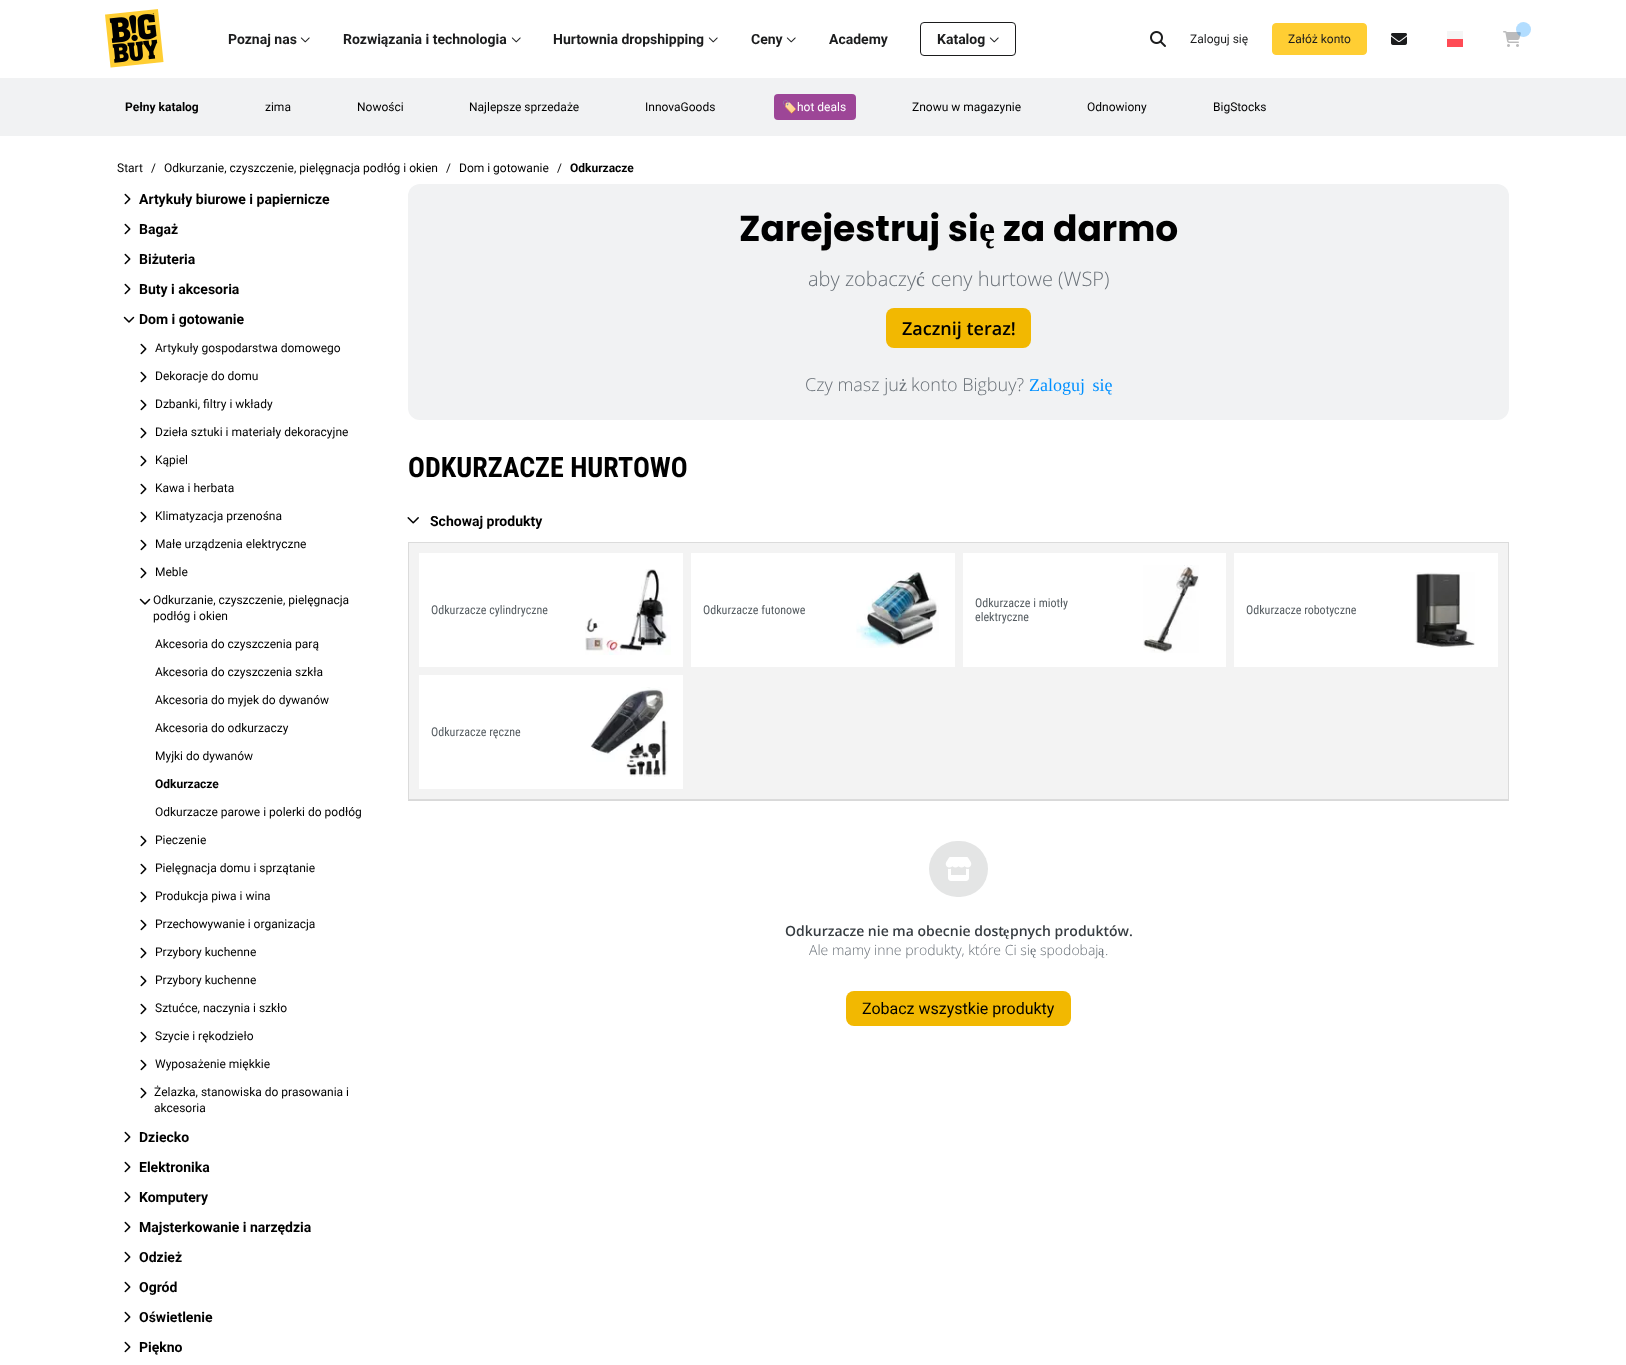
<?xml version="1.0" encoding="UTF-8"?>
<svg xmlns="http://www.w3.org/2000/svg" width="1626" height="1365">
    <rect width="100%" height="100%" fill="#FFFFFF"/>
    <image x="105" y="9" width="59" height="59" href="img_01.png"/>
    <text x="228" y="44" font-family="Roboto" font-size="14" font-weight="700" fill="#1B1C1D">Poznaj nas</text>
    <image x="300" y="37" width="10" height="6" href="img_02.png"/>
    <text x="343" y="44" font-family="Roboto" font-size="14" font-weight="700" fill="#1B1C1D">Rozwiązania i technologia</text>
    <image x="511" y="37" width="10" height="6" href="img_02.png"/>
    <text x="553" y="44" font-family="Roboto" font-size="14" font-weight="700" fill="#1B1C1D">Hurtownia dropshipping</text>
    <image x="708" y="37" width="10" height="6" href="img_02.png"/>
    <text x="751" y="44" font-family="Roboto" font-size="14" font-weight="700" fill="#1B1C1D">Ceny</text>
    <image x="786" y="37" width="10" height="6" href="img_02.png"/>
    <text x="829" y="44" font-family="Roboto" font-size="14" font-weight="700" fill="#1B1C1D">Academy</text>
    <rect x="920.5" y="22.5" width="95" height="33" rx="3.5" fill="none" stroke="#1B1C1D"/>
    <text x="937" y="44" font-family="Roboto" font-size="14" font-weight="700" fill="#1B1C1D">Katalog</text>
    <image x="989" y="37" width="10" height="6" href="img_02.png"/>
    <image x="1150" y="31" width="16" height="16" href="img_03.png"/>
    <text x="1190" y="43" font-family="Roboto" font-size="12" fill="#1B1C1D">Zaloguj się</text>
    <rect x="1272.5" y="23.5" width="94" height="31" rx="3.5" fill="#FFCE33" stroke="#FFCE33"/>
    <text x="1288" y="43" font-family="Roboto" font-size="12" fill="#1B1C1D">Załóż konto</text>
    <image x="1391" y="33" width="16" height="12" href="img_04.png"/>
    <rect x="1447" y="39" width="16" height="8" fill="#FF4B55"/>
    <rect x="1447" y="31" width="16" height="8" fill="#F5F5F5"/>
    <image x="1503" y="31" width="18" height="16" href="img_05.png"/>
    <circle cx="1523.5" cy="29.5" r="7.5" fill="#0090FF" fill-opacity="0.3"/>
    <rect x="0" y="78" width="1626" height="58" fill="#F1F2F3"/>
    <text x="125" y="111" font-family="Roboto" font-size="12" font-weight="700" fill="#000000">Pełny katalog</text>
    <text x="265" y="111" font-family="Roboto" font-size="12" fill="#000000">zima</text>
    <text x="357" y="111" font-family="Roboto" font-size="12" fill="#000000">Nowości</text>
    <text x="469" y="111" font-family="Roboto" font-size="12" fill="#000000">Najlepsze sprzedaże</text>
    <text x="645" y="111" font-family="Roboto" font-size="12" fill="#000000">InnovaGoods</text>
    <rect x="774" y="94" width="82" height="26" rx="4" fill="#9D4697"/>
    <text x="782" y="111" font-family="Noto Color Emoji" font-size="12" fill="#FFFFFF">🏷️</text>
    <text x="797" y="111" font-family="Roboto" font-size="12" fill="#FFFFFF">hot deals</text>
    <text x="912" y="111" font-family="Roboto" font-size="12" fill="#000000">Znowu w magazynie</text>
    <text x="1087" y="111" font-family="Roboto" font-size="12" fill="#000000">Odnowiony</text>
    <text x="1213" y="111" font-family="Roboto" font-size="12" fill="#000000">BigStocks</text>
    <text x="117" y="172" font-family="Roboto" font-size="12" fill="#000000">Start</text>
    <text x="151" y="172" font-family="Roboto" font-size="12" fill="#000000">/</text>
    <text x="164" y="172" font-family="Roboto" font-size="12" fill="#000000">Odkurzanie, czyszczenie, pielęgnacja podłóg i okien</text>
    <text x="446" y="172" font-family="Roboto" font-size="12" fill="#000000">/</text>
    <text x="459" y="172" font-family="Roboto" font-size="12" fill="#000000">Dom i gotowanie</text>
    <text x="557" y="172" font-family="Roboto" font-size="12" fill="#000000">/</text>
    <text x="570" y="172" font-family="Roboto" font-size="12" font-weight="700" fill="#000000">Odkurzacze</text>
    <image x="124" y="193" width="7" height="12" href="img_06.png"/>
    <text x="139" y="204" font-family="Roboto" font-size="14" font-weight="700" fill="#000000">Artykuły biurowe i papiernicze</text>
    <image x="124" y="223" width="7" height="12" href="img_06.png"/>
    <text x="139" y="234" font-family="Roboto" font-size="14" font-weight="700" fill="#000000">Bagaż</text>
    <image x="124" y="253" width="7" height="12" href="img_06.png"/>
    <text x="139" y="264" font-family="Roboto" font-size="14" font-weight="700" fill="#000000">Biżuteria</text>
    <image x="124" y="283" width="7" height="12" href="img_06.png"/>
    <text x="139" y="294" font-family="Roboto" font-size="14" font-weight="700" fill="#000000">Buty i akcesoria</text>
    <image x="123" y="316" width="12" height="7" href="img_07.png"/>
    <text x="139" y="324" font-family="Roboto" font-size="14" font-weight="700" fill="#000000">Dom i gotowanie</text>
    <image x="140" y="343" width="7" height="12" href="img_06.png"/>
    <text x="155" y="352" font-family="Roboto" font-size="12" fill="#000000">Artykuły gospodarstwa domowego</text>
    <image x="140" y="371" width="7" height="12" href="img_06.png"/>
    <text x="155" y="380" font-family="Roboto" font-size="12" fill="#000000">Dekoracje do domu</text>
    <image x="140" y="399" width="7" height="12" href="img_06.png"/>
    <text x="155" y="408" font-family="Roboto" font-size="12" fill="#000000">Dzbanki, filtry i wkłady</text>
    <image x="140" y="427" width="7" height="12" href="img_06.png"/>
    <text x="155" y="436" font-family="Roboto" font-size="12" fill="#000000">Dzieła sztuki i materiały dekoracyjne</text>
    <image x="140" y="455" width="7" height="12" href="img_06.png"/>
    <text x="155" y="464" font-family="Roboto" font-size="12" fill="#000000">Kąpiel</text>
    <image x="140" y="483" width="7" height="12" href="img_06.png"/>
    <text x="155" y="492" font-family="Roboto" font-size="12" fill="#000000">Kawa i herbata</text>
    <image x="140" y="511" width="7" height="12" href="img_06.png"/>
    <text x="155" y="520" font-family="Roboto" font-size="12" fill="#000000">Klimatyzacja przenośna</text>
    <image x="140" y="539" width="7" height="12" href="img_06.png"/>
    <text x="155" y="548" font-family="Roboto" font-size="12" fill="#000000">Małe urządzenia elektryczne</text>
    <image x="140" y="567" width="7" height="12" href="img_06.png"/>
    <text x="155" y="576" font-family="Roboto" font-size="12" fill="#000000">Meble</text>
    <image x="139" y="598" width="12" height="7" href="img_07.png"/>
    <text font-family="Roboto" font-size="12" fill="#000000">
        <tspan x="153" y="604">Odkurzanie, czyszczenie, pielęgnacja</tspan>
        <tspan x="153" y="620">podłóg i okien</tspan>
    </text>
    <text x="155" y="648" font-family="Roboto" font-size="12" fill="#000000">Akcesoria do czyszczenia parą</text>
    <text x="155" y="676" font-family="Roboto" font-size="12" fill="#000000">Akcesoria do czyszczenia szkła</text>
    <text x="155" y="704" font-family="Roboto" font-size="12" fill="#000000">Akcesoria do myjek do dywanów</text>
    <text x="155" y="732" font-family="Roboto" font-size="12" fill="#000000">Akcesoria do odkurzaczy</text>
    <text x="155" y="760" font-family="Roboto" font-size="12" fill="#000000">Myjki do dywanów</text>
    <text x="155" y="788" font-family="Roboto" font-size="12" font-weight="700" fill="#000000">Odkurzacze</text>
    <text x="155" y="816" font-family="Roboto" font-size="12" fill="#000000">Odkurzacze parowe i polerki do podłóg</text>
    <image x="140" y="835" width="7" height="12" href="img_06.png"/>
    <text x="155" y="844" font-family="Roboto" font-size="12" fill="#000000">Pieczenie</text>
    <image x="140" y="863" width="7" height="12" href="img_06.png"/>
    <text x="155" y="872" font-family="Roboto" font-size="12" fill="#000000">Pielęgnacja domu i sprzątanie</text>
    <image x="140" y="891" width="7" height="12" href="img_06.png"/>
    <text x="155" y="900" font-family="Roboto" font-size="12" fill="#000000">Produkcja piwa i wina</text>
    <image x="140" y="919" width="7" height="12" href="img_06.png"/>
    <text x="155" y="928" font-family="Roboto" font-size="12" fill="#000000">Przechowywanie i organizacja</text>
    <image x="140" y="947" width="7" height="12" href="img_06.png"/>
    <text x="155" y="956" font-family="Roboto" font-size="12" fill="#000000">Przybory kuchenne</text>
    <image x="140" y="975" width="7" height="12" href="img_06.png"/>
    <text x="155" y="984" font-family="Roboto" font-size="12" fill="#000000">Przybory kuchenne</text>
    <image x="140" y="1003" width="7" height="12" href="img_06.png"/>
    <text x="155" y="1012" font-family="Roboto" font-size="12" fill="#000000">Sztućce, naczynia i szkło</text>
    <image x="140" y="1031" width="7" height="12" href="img_06.png"/>
    <text x="155" y="1040" font-family="Roboto" font-size="12" fill="#000000">Szycie i rękodzieło</text>
    <image x="140" y="1059" width="7" height="12" href="img_06.png"/>
    <text x="155" y="1068" font-family="Roboto" font-size="12" fill="#000000">Wyposażenie miękkie</text>
    <image x="140" y="1087" width="7" height="12" href="img_06.png"/>
    <text font-family="Roboto" font-size="12" fill="#000000">
        <tspan x="154" y="1096">Żelazka, stanowiska do prasowania i</tspan>
        <tspan x="154" y="1112">akcesoria</tspan>
    </text>
    <image x="124" y="1131" width="7" height="12" href="img_06.png"/>
    <text x="139" y="1142" font-family="Roboto" font-size="14" font-weight="700" fill="#000000">Dziecko</text>
    <image x="124" y="1161" width="7" height="12" href="img_06.png"/>
    <text x="139" y="1172" font-family="Roboto" font-size="14" font-weight="700" fill="#000000">Elektronika</text>
    <image x="124" y="1191" width="7" height="12" href="img_06.png"/>
    <text x="139" y="1202" font-family="Roboto" font-size="14" font-weight="700" fill="#000000">Komputery</text>
    <image x="124" y="1221" width="7" height="12" href="img_06.png"/>
    <text x="139" y="1232" font-family="Roboto" font-size="14" font-weight="700" fill="#000000">Majsterkowanie i narzędzia</text>
    <image x="124" y="1251" width="7" height="12" href="img_06.png"/>
    <text x="139" y="1262" font-family="Roboto" font-size="14" font-weight="700" fill="#000000">Odzież</text>
    <image x="124" y="1281" width="7" height="12" href="img_06.png"/>
    <text x="139" y="1292" font-family="Roboto" font-size="14" font-weight="700" fill="#000000">Ogród</text>
    <image x="124" y="1311" width="7" height="12" href="img_06.png"/>
    <text x="139" y="1322" font-family="Roboto" font-size="14" font-weight="700" fill="#000000">Oświetlenie</text>
    <image x="124" y="1341" width="7" height="12" href="img_06.png"/>
    <text x="139" y="1352" font-family="Roboto" font-size="14" font-weight="700" fill="#000000">Piękno</text>
    <rect x="408" y="184" width="1101" height="236" rx="12" fill="#F1F2F3"/>
    <text x="739" y="241" font-family="Poppins" font-size="36" font-weight="700" fill="#000000">Zarejestruj si</text>
    <text x="979" y="241" font-family="Liberation Serif" font-size="36" font-weight="700" fill="#000000">ę</text>
    <text x="1003" y="241" font-family="Poppins" font-size="36" font-weight="700" fill="#000000">za darmo</text>
    <text x="808" y="286" font-family="Open Sans" font-size="20" font-weight="300" fill="#697077">aby zobaczy</text>
    <text x="916" y="286" font-family="Liberation Serif" font-size="20" fill="#697077">ć</text>
    <text x="931" y="286" font-family="Open Sans" font-size="20" font-weight="300" fill="#697077">ceny hurtowe (WSP)</text>
    <rect x="886" y="308" width="145" height="40" rx="8" fill="#F2B801"/>
    <text x="902" y="335" font-family="Open Sans" font-size="18" font-weight="600" fill="#000000">Zacznij teraz!</text>
    <text x="805" y="391" font-family="Open Sans" font-size="18" font-weight="300" fill="#697077">Czy masz ju</text>
    <text x="899" y="391" font-family="Liberation Serif" font-size="18" fill="#697077">ż</text>
    <text x="911" y="391" font-family="Open Sans" font-size="18" font-weight="300" fill="#697077">konto Bigbuy?</text>
    <text x="1029" y="391" word-spacing="3" font-family="Liberation Serif" font-size="18" fill="#0090FF">Zaloguj się</text>
    <rect x="408" y="800" width="1101" height="1" fill="#D9D9D9"/>
    <text x="408" y="477" font-family="Roboto Condensed" font-size="28" font-weight="700" fill="#000000">ODKURZACZE HURTOWO</text>
    <image x="407" y="517" width="12" height="7" href="img_08.png"/>
    <text x="430" y="526" font-family="Roboto" font-size="14" font-weight="700" fill="#000000">Schowaj produkty</text>
    <rect x="408.5" y="542.5" width="1100" height="257" fill="#F3F3F3" stroke="#DBDBDB"/>
    <rect x="419" y="553" width="264" height="114" fill="#FFFFFF"/>
    <text x="431" y="614" font-family="Roboto Condensed" font-size="12" fill="#565D62">Odkurzacze cylindryczne</text>
    <image x="585" y="569" width="86" height="86" href="img_09.png"/>
    <rect x="691" y="553" width="264" height="114" fill="#FFFFFF"/>
    <text x="703" y="614" font-family="Roboto Condensed" font-size="12" fill="#565D62">Odkurzacze futonowe</text>
    <image x="856" y="572" width="83" height="76" href="img_10.png"/>
    <rect x="963" y="553" width="263" height="114" fill="#FFFFFF"/>
    <text font-family="Roboto Condensed" font-size="12" fill="#565D62">
        <tspan x="975" y="607">Odkurzacze i miotły</tspan>
        <tspan x="975" y="621">elektryczne</tspan>
    </text>
    <image x="1143" y="565" width="56" height="88" href="img_11.png"/>
    <rect x="1234" y="553" width="264" height="114" fill="#FFFFFF"/>
    <text x="1246" y="614" font-family="Roboto Condensed" font-size="12" fill="#565D62">Odkurzacze robotyczne</text>
    <image x="1415" y="572" width="60" height="76" href="img_12.png"/>
    <rect x="419" y="675" width="264" height="114" fill="#FFFFFF"/>
    <text x="431" y="736" font-family="Roboto Condensed" font-size="12" fill="#565D62">Odkurzacze ręczne</text>
    <image x="590" y="687" width="78" height="90" href="img_13.png"/>
    <rect x="929" y="841" width="59" height="56" rx="28" fill="#E4E5E5"/>
    <image x="945" y="857" width="27" height="24" href="img_14.png"/>
    <text x="785" y="936" font-family="Open Sans" font-size="14" font-weight="600" fill="#373D42">Odkurzacze nie ma obecnie dost</text>
    <text x="1003" y="936" font-family="Liberation Serif" font-size="14" font-weight="700" fill="#373D42">ę</text>
    <text x="1010" y="936" font-family="Open Sans" font-size="14" font-weight="600" fill="#373D42">pnych produktów.</text>
    <text x="809" y="955" font-family="Open Sans" font-size="14" font-weight="300" fill="#697077">Ale mamy inne produkty, które Ci si</text>
    <text x="1030" y="955" font-family="Liberation Serif" font-size="14" fill="#697077">ę</text>
    <text x="1040" y="955" font-family="Open Sans" font-size="14" font-weight="300" fill="#697077">spodobaj</text>
    <text x="1098" y="955" font-family="Liberation Serif" font-size="14" fill="#697077">ą</text>
    <text x="1105" y="955" font-family="Open Sans" font-size="14" font-weight="300" fill="#697077">.</text>
    <rect x="846" y="991" width="225" height="35" rx="8" fill="#F2B801"/>
    <text x="862" y="1014" font-family="Roboto" font-size="16" fill="#000000">Zobacz wszystkie produkty</text>
</svg>
